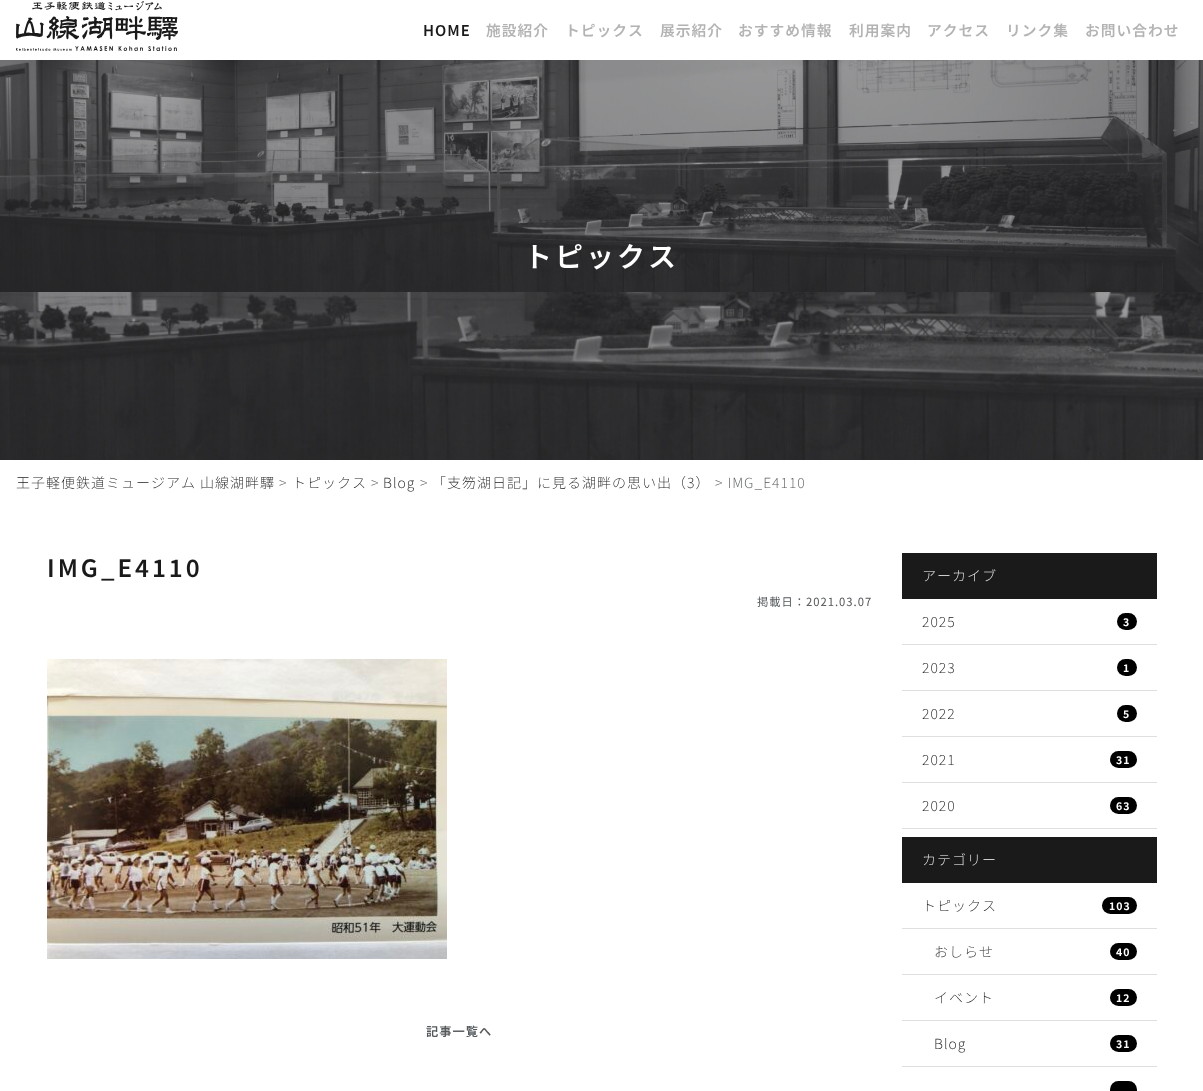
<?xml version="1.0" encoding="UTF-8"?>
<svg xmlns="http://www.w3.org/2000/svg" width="1203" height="1091">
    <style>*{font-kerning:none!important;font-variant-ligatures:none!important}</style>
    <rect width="100%" height="100%" fill="#FFFFFF"/>
    <image x="16" y="1" width="162" height="50" href="img_01.png"/>
    <text x="423" y="36" font-family="Noto Sans JP" font-size="14.75" font-weight="600" letter-spacing="1" fill="#1A1A1A">HOME</text>
    <text x="486" y="36" font-family="Noto Sans JP" font-size="14.75" font-weight="600" letter-spacing="1" fill="#B3B3B3">施設紹介</text>
    <text x="565" y="36" font-family="Noto Sans JP" font-size="14.75" font-weight="600" letter-spacing="1" fill="#B3B3B3">トピックス</text>
    <text x="660" y="36" font-family="Noto Sans JP" font-size="14.75" font-weight="600" letter-spacing="1" fill="#B3B3B3">展⽰紹介</text>
    <text x="738" y="36" font-family="Noto Sans JP" font-size="14.75" font-weight="600" letter-spacing="1" fill="#B3B3B3">おすすめ情報</text>
    <text x="849" y="36" font-family="Noto Sans JP" font-size="14.75" font-weight="600" letter-spacing="1" fill="#B3B3B3">利⽤案内</text>
    <text x="927" y="36" font-family="Noto Sans JP" font-size="14.75" font-weight="600" letter-spacing="1" fill="#B3B3B3">アクセス</text>
    <text x="1006" y="36" font-family="Noto Sans JP" font-size="14.75" font-weight="600" letter-spacing="1" fill="#B3B3B3">リンク集</text>
    <text x="1085" y="36" font-family="Noto Sans JP" font-size="14.75" font-weight="600" letter-spacing="1" fill="#B3B3B3">お問い合わせ</text>
    <image x="0" y="292" width="1203" height="168" href="img_02.png"/>
    <image x="0" y="60" width="1203" height="232" href="img_03.png"/>
    <text x="524" y="267" font-family="Noto Sans JP" font-size="28" font-weight="600" letter-spacing="3" fill="#FFFFFF">トピックス</text>
    <text x="16" y="488" font-family="Noto Sans JP" font-size="14" font-weight="200" letter-spacing="1" fill="#1A1A1A">王子軽便鉄道ミュージアム 山線湖畔驛</text>
    <text x="279" y="488" font-family="Noto Sans JP" font-size="14" font-weight="200" letter-spacing="1" fill="#55595C">&gt;</text>
    <text x="292" y="488" font-family="Noto Sans JP" font-size="14" font-weight="200" letter-spacing="1" fill="#1A1A1A">トピックス</text>
    <text x="371" y="488" font-family="Noto Sans JP" font-size="14" font-weight="200" letter-spacing="1" fill="#55595C">&gt;</text>
    <text x="383" y="488" font-family="Noto Sans JP" font-size="14" font-weight="200" letter-spacing="1" fill="#1A1A1A">Blog</text>
    <text x="420" y="488" font-family="Noto Sans JP" font-size="14" font-weight="200" letter-spacing="1" fill="#55595C">&gt;</text>
    <text x="432" y="488" font-family="Noto Sans JP" font-size="14" font-weight="200" letter-spacing="1" fill="#1A1A1A">「支笏湖日記」に見る湖畔の思い出（3）</text>
    <text x="715" y="488" font-family="Noto Sans JP" font-size="14" font-weight="200" letter-spacing="1" fill="#55595C">&gt; IMG_E4110</text>
    <text x="47" y="577" font-family="Noto Sans JP" font-size="24" font-weight="600" letter-spacing="3" fill="#1A1A1A">IMG_E4110</text>
    <text x="757" y="606" font-family="Noto Sans JP" font-size="11.25" letter-spacing="1" fill="#55595C">掲載日：2021.03.07</text>
    <image x="47" y="659" width="400" height="300" href="img_04.png"/>
    <text x="426" y="1036" font-family="Noto Sans JP" font-size="12.25" font-weight="600" letter-spacing="1" fill="#55595C">記事一覧へ</text>
    <rect x="902" y="553" width="255" height="46" fill="#1A1A1A"/>
    <text x="922" y="581" font-family="Noto Sans JP" font-size="14" font-weight="200" letter-spacing="1" fill="#FFFFFF">アーカイブ</text>
    <rect x="902" y="644" width="255" height="1" fill="#DFDFDF"/>
    <text x="922" y="627" font-family="Noto Sans JP" font-size="14" font-weight="200" letter-spacing="1" fill="#1A1A1A">2025</text>
    <rect x="1117" y="613" width="20" height="17" rx="8.5" fill="#000000"/>
    <text x="1123" y="626" font-family="Noto Sans JP" font-size="10.5" font-weight="700" letter-spacing="1" fill="#FFFFFF">3</text>
    <rect x="902" y="690" width="255" height="1" fill="#DFDFDF"/>
    <text x="922" y="673" font-family="Noto Sans JP" font-size="14" font-weight="200" letter-spacing="1" fill="#1A1A1A">2023</text>
    <rect x="1117" y="659" width="20" height="17" rx="8.5" fill="#000000"/>
    <text x="1123" y="672" font-family="Noto Sans JP" font-size="10.5" font-weight="700" letter-spacing="1" fill="#FFFFFF">1</text>
    <rect x="902" y="736" width="255" height="1" fill="#DFDFDF"/>
    <text x="922" y="719" font-family="Noto Sans JP" font-size="14" font-weight="200" letter-spacing="1" fill="#1A1A1A">2022</text>
    <rect x="1117" y="705" width="20" height="17" rx="8.5" fill="#000000"/>
    <text x="1123" y="718" font-family="Noto Sans JP" font-size="10.5" font-weight="700" letter-spacing="1" fill="#FFFFFF">5</text>
    <rect x="902" y="782" width="255" height="1" fill="#DFDFDF"/>
    <text x="922" y="765" font-family="Noto Sans JP" font-size="14" font-weight="200" letter-spacing="1" fill="#1A1A1A">2021</text>
    <rect x="1110" y="751" width="27" height="17" rx="8.5" fill="#000000"/>
    <text x="1116" y="764" font-family="Noto Sans JP" font-size="10.5" font-weight="700" letter-spacing="1" fill="#FFFFFF">31</text>
    <rect x="902" y="828" width="255" height="1" fill="#DFDFDF"/>
    <text x="922" y="811" font-family="Noto Sans JP" font-size="14" font-weight="200" letter-spacing="1" fill="#1A1A1A">2020</text>
    <rect x="1110" y="797" width="27" height="17" rx="8.5" fill="#000000"/>
    <text x="1116" y="810" font-family="Noto Sans JP" font-size="10.5" font-weight="700" letter-spacing="1" fill="#FFFFFF">63</text>
    <rect x="902" y="837" width="255" height="46" fill="#1A1A1A"/>
    <text x="922" y="865" font-family="Noto Sans JP" font-size="14" font-weight="200" letter-spacing="1" fill="#FFFFFF">カテゴリー</text>
    <rect x="902" y="928" width="255" height="1" fill="#DFDFDF"/>
    <text x="922" y="911" font-family="Noto Sans JP" font-size="14" font-weight="200" letter-spacing="1" fill="#1A1A1A">トピックス</text>
    <rect x="1102" y="897" width="35" height="17" rx="8.5" fill="#000000"/>
    <text x="1109" y="910" font-family="Noto Sans JP" font-size="10.5" font-weight="700" letter-spacing="1" fill="#FFFFFF">103</text>
    <rect x="902" y="974" width="255" height="1" fill="#DFDFDF"/>
    <text x="934" y="957" font-family="Noto Sans JP" font-size="14" font-weight="200" letter-spacing="1" fill="#1A1A1A">おしらせ</text>
    <rect x="1110" y="943" width="27" height="17" rx="8.5" fill="#000000"/>
    <text x="1116" y="956" font-family="Noto Sans JP" font-size="10.5" font-weight="700" letter-spacing="1" fill="#FFFFFF">40</text>
    <rect x="902" y="1020" width="255" height="1" fill="#DFDFDF"/>
    <text x="934" y="1003" font-family="Noto Sans JP" font-size="14" font-weight="200" letter-spacing="1" fill="#1A1A1A">イベント</text>
    <rect x="1110" y="989" width="27" height="17" rx="8.5" fill="#000000"/>
    <text x="1116" y="1002" font-family="Noto Sans JP" font-size="10.5" font-weight="700" letter-spacing="1" fill="#FFFFFF">12</text>
    <rect x="902" y="1066" width="255" height="1" fill="#DFDFDF"/>
    <text x="934" y="1049" font-family="Noto Sans JP" font-size="14" font-weight="200" letter-spacing="1" fill="#1A1A1A">Blog</text>
    <rect x="1110" y="1035" width="27" height="17" rx="8.5" fill="#000000"/>
    <text x="1116" y="1048" font-family="Noto Sans JP" font-size="10.5" font-weight="700" letter-spacing="1" fill="#FFFFFF">31</text>
    <rect x="1110" y="1081" width="27" height="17" rx="8.5" fill="#000000"/>
</svg>
